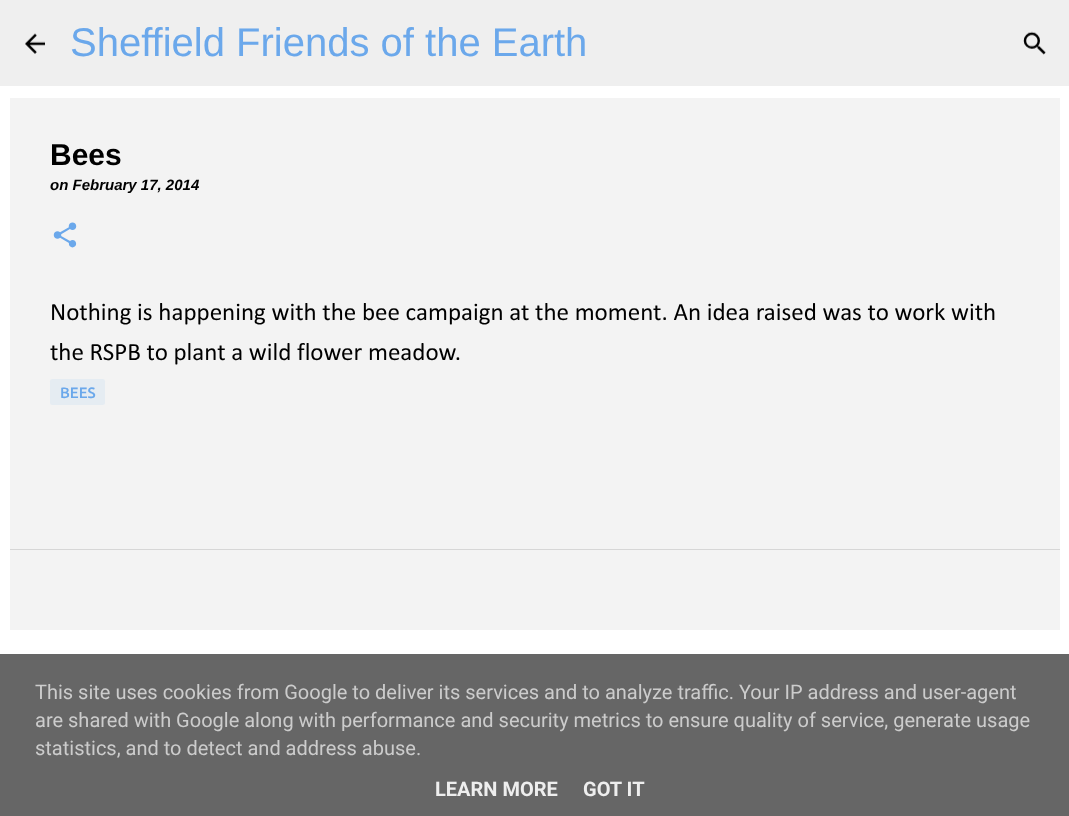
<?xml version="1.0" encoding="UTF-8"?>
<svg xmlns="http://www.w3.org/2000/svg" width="1069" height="816">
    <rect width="100%" height="100%" fill="#FFFFFF"/>
    <rect x="0" y="0" width="1069" height="86" fill="#EFEFEF"/>
    <image x="25" y="33" width="20" height="21" href="img_01.png"/>
    <text x="70" y="56" font-family="Liberation Sans" font-size="40" fill="#6BA8EB">Sheffield Friends of the Earth</text>
    <image x="1023" y="31" width="23" height="24" href="img_02.png"/>
    <rect x="10" y="98" width="1050" height="451" fill="#F3F3F3"/>
    <text x="50" y="165" font-family="Liberation Sans" font-size="30" font-weight="700" fill="#000000">Bees</text>
    <text x="50" y="190" font-family="Liberation Sans" font-size="15" font-weight="700" font-style="italic" fill="#000000">on February 17, 2014</text>
    <image x="53" y="222" width="24" height="26" href="img_03.png"/>
    <text font-family="Calibri" font-size="25" fill="#000000">
        <tspan x="50" y="320">Nothing is happening with the bee campaign at the moment. An idea raised was to work with</tspan>
        <tspan x="50" y="360">the RSPB to plant a wild flower meadow.</tspan>
    </text>
    <rect x="50" y="379" width="55" height="26" rx="2.5" fill="#E5ECF2"/>
    <text x="60" y="398" font-family="Ubuntu" font-size="15" font-weight="500" fill="#6BA8EB">BEES</text>
    <rect x="10" y="550" width="1050" height="80" fill="#F3F3F3"/>
    <rect x="10" y="549" width="1050" height="1" fill="#D6D6D6"/>
    <rect x="0" y="654" width="1069" height="162" fill="#666666"/>
    <text font-family="Roboto" font-size="20" fill="#CCCCCC">
        <tspan x="35" y="699">This site uses cookies from Google to deliver its services and to analyze traffic. Your IP address and user-agent</tspan>
        <tspan x="35" y="727">are shared with Google along with performance and security metrics to ensure quality of service, generate usage</tspan>
        <tspan x="35" y="755">statistics, and to detect and address abuse.</tspan>
    </text>
    <text x="435" y="796" font-family="Roboto" font-size="20" font-weight="700" fill="#EEEEEE">LEARN MORE</text>
    <text x="583" y="796" font-family="Roboto" font-size="20" font-weight="700" fill="#EEEEEE">GOT IT</text>
</svg>
